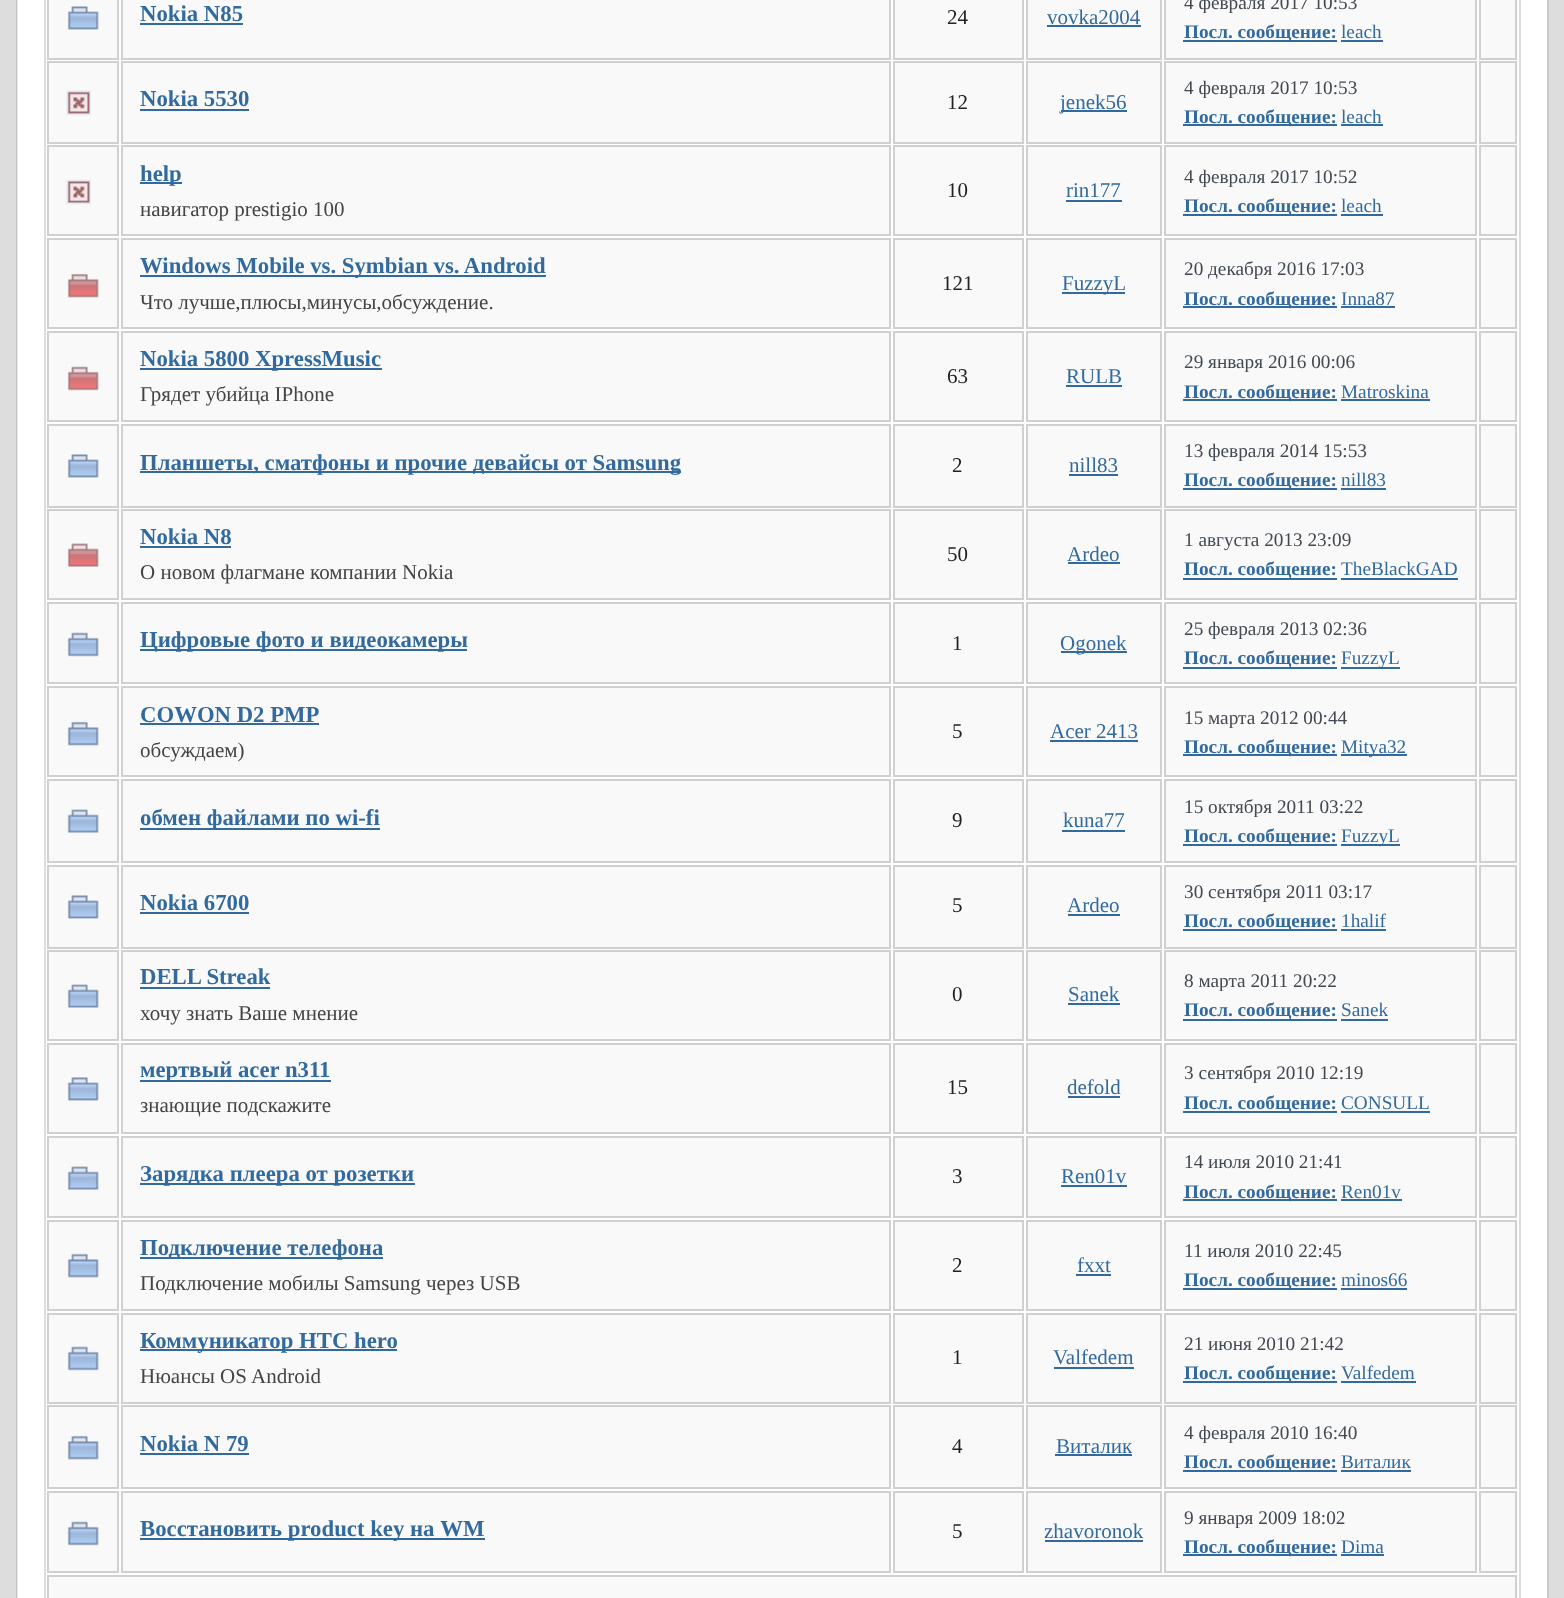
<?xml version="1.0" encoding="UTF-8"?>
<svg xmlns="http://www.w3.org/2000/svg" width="1564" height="1598">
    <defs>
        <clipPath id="clip1"><rect x="16" y="0" width="1533" height="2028"/></clipPath>
    </defs>
    <rect width="100%" height="100%" fill="#DDDDDD"/>
    <rect x="17" y="0" width="1532" height="1598" fill="#FFFFFF"/>
    <g clip-path="url(#clip1)">
        <path d="M 20.5 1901 C 18 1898.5 16.5 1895 16.5 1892 V -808.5 C 16.5 -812 18 -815.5 20.5 -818 C 23 -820 26.5 -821.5 30 -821.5 H 1535 C 1538 -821.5 1541.5 -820 1544 -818 C 1546.5 -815.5 1548 -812 1548 -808.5 V 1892 C 1548 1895 1546.5 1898.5 1544 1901" fill="none" stroke="#C5C5C5" stroke-width="1.8"/>
    </g>
    <rect x="45" y="-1" width="1475" height="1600" fill="none" stroke="#DDDDDD" stroke-width="2"/>
    <rect x="48" y="-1" width="70" height="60" fill="#F9F9F9" stroke="#D0D0D0" stroke-width="2"/>
    <image x="67" y="6" width="32" height="24" href="img_01.png"/>
    <rect x="122" y="-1" width="768" height="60" fill="#F9F9F9" stroke="#D0D0D0" stroke-width="2"/>
    <text x="140" y="21" font-family="Liberation Serif" font-size="22.75" font-weight="700" fill="#326A9E">Nokia N85</text>
    <rect x="140" y="23" width="103" height="2" fill="#326A9E"/>
    <rect x="894" y="-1" width="129" height="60" fill="#F9F9F9" stroke="#D0D0D0" stroke-width="2"/>
    <text x="947" y="24" font-family="Liberation Serif" font-size="21" fill="#222222">24</text>
    <rect x="1027" y="-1" width="134" height="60" fill="#F9F9F9" stroke="#D0D0D0" stroke-width="2"/>
    <text x="1047" y="24" font-family="Liberation Serif" font-size="21" fill="#326A9E">vovka2004</text>
    <rect x="1047" y="25" width="94" height="2" fill="#326A9E"/>
    <rect x="1165" y="-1" width="311" height="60" fill="#F9F9F9" stroke="#D0D0D0" stroke-width="2"/>
    <text x="1184" y="9" font-family="Liberation Serif" font-size="19.25" fill="#434951">4 февраля 2017 10:53</text>
    <rect x="1183" y="40" width="154" height="2" fill="#326A9E"/>
    <text x="1184" y="38" font-family="Liberation Serif" font-size="19.25" font-weight="700" fill="#326A9E">Посл. сообщение:</text>
    <text x="1341" y="38" font-family="Liberation Serif" font-size="19.25" fill="#326A9E">leach</text>
    <rect x="1341" y="40" width="42" height="2" fill="#326A9E"/>
    <rect x="1480" y="-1" width="36" height="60" fill="#F9F9F9" stroke="#D0D0D0" stroke-width="2"/>
    <rect x="48" y="62" width="70" height="81" fill="#F9F9F9" stroke="#D0D0D0" stroke-width="2"/>
    <image x="66" y="90" width="25" height="25" href="img_02.png"/>
    <rect x="122" y="62" width="768" height="81" fill="#F9F9F9" stroke="#D0D0D0" stroke-width="2"/>
    <text x="140" y="106" font-family="Liberation Serif" font-size="22.75" font-weight="700" fill="#326A9E">Nokia 5530</text>
    <rect x="140" y="109" width="109" height="2" fill="#326A9E"/>
    <rect x="894" y="62" width="129" height="81" fill="#F9F9F9" stroke="#D0D0D0" stroke-width="2"/>
    <text x="947" y="109" font-family="Liberation Serif" font-size="21" fill="#222222">12</text>
    <rect x="1027" y="62" width="134" height="81" fill="#F9F9F9" stroke="#D0D0D0" stroke-width="2"/>
    <rect x="1061" y="110" width="66" height="2" fill="#326A9E"/>
    <text x="1060" y="109" font-family="Liberation Serif" font-size="21" fill="#326A9E">jenek56</text>
    <rect x="1165" y="62" width="311" height="81" fill="#F9F9F9" stroke="#D0D0D0" stroke-width="2"/>
    <text x="1184" y="94" font-family="Liberation Serif" font-size="19.25" fill="#434951">4 февраля 2017 10:53</text>
    <rect x="1183" y="124" width="154" height="2" fill="#326A9E"/>
    <text x="1184" y="123" font-family="Liberation Serif" font-size="19.25" font-weight="700" fill="#326A9E">Посл. сообщение:</text>
    <text x="1341" y="123" font-family="Liberation Serif" font-size="19.25" fill="#326A9E">leach</text>
    <rect x="1341" y="124" width="42" height="2" fill="#326A9E"/>
    <rect x="1480" y="62" width="36" height="81" fill="#F9F9F9" stroke="#D0D0D0" stroke-width="2"/>
    <rect x="48" y="146" width="70" height="89" fill="#F9F9F9" stroke="#D0D0D0" stroke-width="2"/>
    <image x="66" y="179" width="25" height="26" href="img_03.png"/>
    <rect x="122" y="146" width="768" height="89" fill="#F9F9F9" stroke="#D0D0D0" stroke-width="2"/>
    <rect x="140" y="182" width="42" height="2" fill="#326A9E"/>
    <text x="140" y="181" font-family="Liberation Serif" font-size="22.75" font-weight="700" fill="#326A9E">help</text>
    <text x="140" y="216" font-family="Liberation Serif" font-size="21" fill="#444444">навигатор prestigio 100</text>
    <rect x="894" y="146" width="129" height="89" fill="#F9F9F9" stroke="#D0D0D0" stroke-width="2"/>
    <text x="947" y="197" font-family="Liberation Serif" font-size="21" fill="#222222">10</text>
    <rect x="1027" y="146" width="134" height="89" fill="#F9F9F9" stroke="#D0D0D0" stroke-width="2"/>
    <text x="1066" y="197" font-family="Liberation Serif" font-size="21" fill="#326A9E">rin177</text>
    <rect x="1066" y="200" width="56" height="2" fill="#326A9E"/>
    <rect x="1165" y="146" width="311" height="89" fill="#F9F9F9" stroke="#D0D0D0" stroke-width="2"/>
    <text x="1184" y="183" font-family="Liberation Serif" font-size="19.25" fill="#434951">4 февраля 2017 10:52</text>
    <rect x="1183" y="214" width="154" height="2" fill="#326A9E"/>
    <text x="1184" y="212" font-family="Liberation Serif" font-size="19.25" font-weight="700" fill="#326A9E">Посл. сообщение:</text>
    <text x="1341" y="212" font-family="Liberation Serif" font-size="19.25" fill="#326A9E">leach</text>
    <rect x="1341" y="214" width="42" height="2" fill="#326A9E"/>
    <rect x="1480" y="146" width="36" height="89" fill="#F9F9F9" stroke="#D0D0D0" stroke-width="2"/>
    <rect x="48" y="239" width="70" height="89" fill="#F9F9F9" stroke="#D0D0D0" stroke-width="2"/>
    <image x="67" y="273" width="32" height="25" href="img_04.png"/>
    <rect x="122" y="239" width="768" height="89" fill="#F9F9F9" stroke="#D0D0D0" stroke-width="2"/>
    <rect x="140" y="275" width="406" height="2" fill="#326A9E"/>
    <text x="140" y="273" font-family="Liberation Serif" font-size="22.75" font-weight="700" fill="#326A9E">Windows Mobile vs. Symbian vs. Android</text>
    <text x="140" y="309" font-family="Liberation Serif" font-size="21" fill="#444444">Что лучше,плюсы,минусы,обсуждение.</text>
    <rect x="894" y="239" width="129" height="89" fill="#F9F9F9" stroke="#D0D0D0" stroke-width="2"/>
    <text x="942" y="290" font-family="Liberation Serif" font-size="21" fill="#222222">121</text>
    <rect x="1027" y="239" width="134" height="89" fill="#F9F9F9" stroke="#D0D0D0" stroke-width="2"/>
    <rect x="1062" y="292" width="63" height="2" fill="#326A9E"/>
    <text x="1062" y="290" font-family="Liberation Serif" font-size="21" fill="#326A9E">FuzzyL</text>
    <rect x="1165" y="239" width="311" height="89" fill="#F9F9F9" stroke="#D0D0D0" stroke-width="2"/>
    <text x="1184" y="275" font-family="Liberation Serif" font-size="19.25" fill="#434951">20 декабря 2016 17:03</text>
    <rect x="1183" y="306" width="154" height="2" fill="#326A9E"/>
    <text x="1184" y="305" font-family="Liberation Serif" font-size="19.25" font-weight="700" fill="#326A9E">Посл. сообщение:</text>
    <text x="1341" y="305" font-family="Liberation Serif" font-size="19.25" fill="#326A9E">Inna87</text>
    <rect x="1341" y="306" width="54" height="2" fill="#326A9E"/>
    <rect x="1480" y="239" width="36" height="89" fill="#F9F9F9" stroke="#D0D0D0" stroke-width="2"/>
    <rect x="48" y="332" width="70" height="89" fill="#F9F9F9" stroke="#D0D0D0" stroke-width="2"/>
    <image x="67" y="366" width="32" height="25" href="img_05.png"/>
    <rect x="122" y="332" width="768" height="89" fill="#F9F9F9" stroke="#D0D0D0" stroke-width="2"/>
    <rect x="140" y="368" width="242" height="2" fill="#326A9E"/>
    <text x="140" y="366" font-family="Liberation Serif" font-size="22.75" font-weight="700" fill="#326A9E">Nokia 5800 XpressMusic</text>
    <text x="140" y="401" font-family="Liberation Serif" font-size="21" fill="#444444">Грядет убийца IPhone</text>
    <rect x="894" y="332" width="129" height="89" fill="#F9F9F9" stroke="#D0D0D0" stroke-width="2"/>
    <text x="947" y="383" font-family="Liberation Serif" font-size="21" fill="#222222">63</text>
    <rect x="1027" y="332" width="134" height="89" fill="#F9F9F9" stroke="#D0D0D0" stroke-width="2"/>
    <text x="1066" y="383" font-family="Liberation Serif" font-size="21" fill="#326A9E">RULB</text>
    <rect x="1066" y="385" width="56" height="2" fill="#326A9E"/>
    <rect x="1165" y="332" width="311" height="89" fill="#F9F9F9" stroke="#D0D0D0" stroke-width="2"/>
    <text x="1184" y="368" font-family="Liberation Serif" font-size="19.25" fill="#434951">29 января 2016 00:06</text>
    <rect x="1183" y="399" width="154" height="2" fill="#326A9E"/>
    <text x="1184" y="398" font-family="Liberation Serif" font-size="19.25" font-weight="700" fill="#326A9E">Посл. сообщение:</text>
    <text x="1341" y="398" font-family="Liberation Serif" font-size="19.25" fill="#326A9E">Matroskina</text>
    <rect x="1341" y="399" width="89" height="2" fill="#326A9E"/>
    <rect x="1480" y="332" width="36" height="89" fill="#F9F9F9" stroke="#D0D0D0" stroke-width="2"/>
    <rect x="48" y="425" width="70" height="82" fill="#F9F9F9" stroke="#D0D0D0" stroke-width="2"/>
    <image x="67" y="454" width="32" height="24" href="img_01.png"/>
    <rect x="122" y="425" width="768" height="82" fill="#F9F9F9" stroke="#D0D0D0" stroke-width="2"/>
    <rect x="140" y="471" width="541" height="2" fill="#326A9E"/>
    <text x="140" y="470" font-family="Liberation Serif" font-size="22.75" font-weight="700" fill="#326A9E">Планшеты, сматфоны и прочие девайсы от Samsung</text>
    <rect x="894" y="425" width="129" height="82" fill="#F9F9F9" stroke="#D0D0D0" stroke-width="2"/>
    <text x="952" y="472" font-family="Liberation Serif" font-size="21" fill="#222222">2</text>
    <rect x="1027" y="425" width="134" height="82" fill="#F9F9F9" stroke="#D0D0D0" stroke-width="2"/>
    <text x="1069" y="472" font-family="Liberation Serif" font-size="21" fill="#326A9E">nill83</text>
    <rect x="1069" y="474" width="49" height="2" fill="#326A9E"/>
    <rect x="1165" y="425" width="311" height="82" fill="#F9F9F9" stroke="#D0D0D0" stroke-width="2"/>
    <text x="1184" y="457" font-family="Liberation Serif" font-size="19.25" fill="#434951">13 февраля 2014 15:53</text>
    <rect x="1183" y="488" width="154" height="2" fill="#326A9E"/>
    <text x="1184" y="486" font-family="Liberation Serif" font-size="19.25" font-weight="700" fill="#326A9E">Посл. сообщение:</text>
    <text x="1341" y="486" font-family="Liberation Serif" font-size="19.25" fill="#326A9E">nill83</text>
    <rect x="1341" y="488" width="45" height="2" fill="#326A9E"/>
    <rect x="1480" y="425" width="36" height="82" fill="#F9F9F9" stroke="#D0D0D0" stroke-width="2"/>
    <rect x="48" y="510" width="70" height="89" fill="#F9F9F9" stroke="#D0D0D0" stroke-width="2"/>
    <image x="67" y="543" width="32" height="24" href="img_06.png"/>
    <rect x="122" y="510" width="768" height="89" fill="#F9F9F9" stroke="#D0D0D0" stroke-width="2"/>
    <text x="140" y="544" font-family="Liberation Serif" font-size="22.75" font-weight="700" fill="#326A9E">Nokia N8</text>
    <rect x="140" y="546" width="91" height="2" fill="#326A9E"/>
    <text x="140" y="579" font-family="Liberation Serif" font-size="21" fill="#444444">О новом флагмане компании Nokia</text>
    <rect x="894" y="510" width="129" height="89" fill="#F9F9F9" stroke="#D0D0D0" stroke-width="2"/>
    <text x="947" y="561" font-family="Liberation Serif" font-size="21" fill="#222222">50</text>
    <rect x="1027" y="510" width="134" height="89" fill="#F9F9F9" stroke="#D0D0D0" stroke-width="2"/>
    <text x="1067" y="561" font-family="Liberation Serif" font-size="21" fill="#326A9E">Ardeo</text>
    <rect x="1068" y="562" width="52" height="2" fill="#326A9E"/>
    <rect x="1165" y="510" width="311" height="89" fill="#F9F9F9" stroke="#D0D0D0" stroke-width="2"/>
    <text x="1184" y="546" font-family="Liberation Serif" font-size="19.25" fill="#434951">1 августа 2013 23:09</text>
    <rect x="1183" y="578" width="154" height="2" fill="#326A9E"/>
    <text x="1184" y="575" font-family="Liberation Serif" font-size="19.25" font-weight="700" fill="#326A9E">Посл. сообщение:</text>
    <text x="1341" y="575" font-family="Liberation Serif" font-size="19.25" fill="#326A9E">TheBlackGAD</text>
    <rect x="1341" y="578" width="117" height="2" fill="#326A9E"/>
    <rect x="1480" y="510" width="36" height="89" fill="#F9F9F9" stroke="#D0D0D0" stroke-width="2"/>
    <rect x="48" y="603" width="70" height="80" fill="#F9F9F9" stroke="#D0D0D0" stroke-width="2"/>
    <image x="67" y="632" width="32" height="25" href="img_07.png"/>
    <rect x="122" y="603" width="768" height="80" fill="#F9F9F9" stroke="#D0D0D0" stroke-width="2"/>
    <rect x="140" y="649" width="327" height="2" fill="#326A9E"/>
    <text x="140" y="647" font-family="Liberation Serif" font-size="22.75" font-weight="700" fill="#326A9E">Цифровые фото и видеокамеры</text>
    <rect x="894" y="603" width="129" height="80" fill="#F9F9F9" stroke="#D0D0D0" stroke-width="2"/>
    <text x="952" y="650" font-family="Liberation Serif" font-size="21" fill="#222222">1</text>
    <rect x="1027" y="603" width="134" height="80" fill="#F9F9F9" stroke="#D0D0D0" stroke-width="2"/>
    <rect x="1061" y="651" width="66" height="2" fill="#326A9E"/>
    <text x="1060" y="650" font-family="Liberation Serif" font-size="21" fill="#326A9E">Ogonek</text>
    <rect x="1165" y="603" width="311" height="80" fill="#F9F9F9" stroke="#D0D0D0" stroke-width="2"/>
    <text x="1184" y="635" font-family="Liberation Serif" font-size="19.25" fill="#434951">25 февраля 2013 02:36</text>
    <rect x="1183" y="667" width="154" height="2" fill="#326A9E"/>
    <text x="1184" y="664" font-family="Liberation Serif" font-size="19.25" font-weight="700" fill="#326A9E">Посл. сообщение:</text>
    <rect x="1341" y="667" width="59" height="2" fill="#326A9E"/>
    <text x="1341" y="664" font-family="Liberation Serif" font-size="19.25" fill="#326A9E">FuzzyL</text>
    <rect x="1480" y="603" width="36" height="80" fill="#F9F9F9" stroke="#D0D0D0" stroke-width="2"/>
    <rect x="48" y="687" width="70" height="89" fill="#F9F9F9" stroke="#D0D0D0" stroke-width="2"/>
    <image x="67" y="721" width="32" height="25" href="img_08.png"/>
    <rect x="122" y="687" width="768" height="89" fill="#F9F9F9" stroke="#D0D0D0" stroke-width="2"/>
    <text x="140" y="722" font-family="Liberation Serif" font-size="22.75" font-weight="700" fill="#326A9E">COWON D2 PMP</text>
    <rect x="140" y="723" width="179" height="2" fill="#326A9E"/>
    <text x="140" y="757" font-family="Liberation Serif" font-size="21" fill="#444444">обсуждаем)</text>
    <rect x="894" y="687" width="129" height="89" fill="#F9F9F9" stroke="#D0D0D0" stroke-width="2"/>
    <text x="952" y="738" font-family="Liberation Serif" font-size="21" fill="#222222">5</text>
    <rect x="1027" y="687" width="134" height="89" fill="#F9F9F9" stroke="#D0D0D0" stroke-width="2"/>
    <text x="1050" y="738" font-family="Liberation Serif" font-size="21" fill="#326A9E">Acer 2413</text>
    <rect x="1050" y="740" width="88" height="2" fill="#326A9E"/>
    <rect x="1165" y="687" width="311" height="89" fill="#F9F9F9" stroke="#D0D0D0" stroke-width="2"/>
    <text x="1184" y="724" font-family="Liberation Serif" font-size="19.25" fill="#434951">15 марта 2012 00:44</text>
    <rect x="1183" y="754" width="154" height="2" fill="#326A9E"/>
    <text x="1184" y="753" font-family="Liberation Serif" font-size="19.25" font-weight="700" fill="#326A9E">Посл. сообщение:</text>
    <rect x="1341" y="754" width="66" height="2" fill="#326A9E"/>
    <text x="1341" y="753" font-family="Liberation Serif" font-size="19.25" fill="#326A9E">Mitya32</text>
    <rect x="1480" y="687" width="36" height="89" fill="#F9F9F9" stroke="#D0D0D0" stroke-width="2"/>
    <rect x="48" y="780" width="70" height="82" fill="#F9F9F9" stroke="#D0D0D0" stroke-width="2"/>
    <image x="67" y="809" width="32" height="24" href="img_09.png"/>
    <rect x="122" y="780" width="768" height="82" fill="#F9F9F9" stroke="#D0D0D0" stroke-width="2"/>
    <rect x="140" y="828" width="240" height="2" fill="#326A9E"/>
    <text x="140" y="825" font-family="Liberation Serif" font-size="22.75" font-weight="700" fill="#326A9E">обмен файлами по wi-fi</text>
    <rect x="894" y="780" width="129" height="82" fill="#F9F9F9" stroke="#D0D0D0" stroke-width="2"/>
    <text x="952" y="827" font-family="Liberation Serif" font-size="21" fill="#222222">9</text>
    <rect x="1027" y="780" width="134" height="82" fill="#F9F9F9" stroke="#D0D0D0" stroke-width="2"/>
    <text x="1063" y="827" font-family="Liberation Serif" font-size="21" fill="#326A9E">kuna77</text>
    <rect x="1062" y="830" width="63" height="2" fill="#326A9E"/>
    <rect x="1165" y="780" width="311" height="82" fill="#F9F9F9" stroke="#D0D0D0" stroke-width="2"/>
    <text x="1184" y="813" font-family="Liberation Serif" font-size="19.25" fill="#434951">15 октября 2011 03:22</text>
    <rect x="1183" y="844" width="154" height="2" fill="#326A9E"/>
    <text x="1184" y="842" font-family="Liberation Serif" font-size="19.25" font-weight="700" fill="#326A9E">Посл. сообщение:</text>
    <rect x="1341" y="844" width="59" height="2" fill="#326A9E"/>
    <text x="1341" y="842" font-family="Liberation Serif" font-size="19.25" fill="#326A9E">FuzzyL</text>
    <rect x="1480" y="780" width="36" height="82" fill="#F9F9F9" stroke="#D0D0D0" stroke-width="2"/>
    <rect x="48" y="866" width="70" height="82" fill="#F9F9F9" stroke="#D0D0D0" stroke-width="2"/>
    <image x="67" y="895" width="32" height="24" href="img_10.png"/>
    <rect x="122" y="866" width="768" height="82" fill="#F9F9F9" stroke="#D0D0D0" stroke-width="2"/>
    <text x="140" y="910" font-family="Liberation Serif" font-size="22.75" font-weight="700" fill="#326A9E">Nokia 6700</text>
    <rect x="140" y="912" width="109" height="2" fill="#326A9E"/>
    <rect x="894" y="866" width="129" height="82" fill="#F9F9F9" stroke="#D0D0D0" stroke-width="2"/>
    <text x="952" y="912" font-family="Liberation Serif" font-size="21" fill="#222222">5</text>
    <rect x="1027" y="866" width="134" height="82" fill="#F9F9F9" stroke="#D0D0D0" stroke-width="2"/>
    <text x="1067" y="912" font-family="Liberation Serif" font-size="21" fill="#326A9E">Ardeo</text>
    <rect x="1068" y="914" width="52" height="2" fill="#326A9E"/>
    <rect x="1165" y="866" width="311" height="82" fill="#F9F9F9" stroke="#D0D0D0" stroke-width="2"/>
    <text x="1184" y="898" font-family="Liberation Serif" font-size="19.25" fill="#434951">30 сентября 2011 03:17</text>
    <rect x="1183" y="929" width="154" height="2" fill="#326A9E"/>
    <text x="1184" y="927" font-family="Liberation Serif" font-size="19.25" font-weight="700" fill="#326A9E">Посл. сообщение:</text>
    <text x="1341" y="927" font-family="Liberation Serif" font-size="19.25" fill="#326A9E">1halif</text>
    <rect x="1341" y="929" width="45" height="2" fill="#326A9E"/>
    <rect x="1480" y="866" width="36" height="82" fill="#F9F9F9" stroke="#D0D0D0" stroke-width="2"/>
    <rect x="48" y="951" width="70" height="89" fill="#F9F9F9" stroke="#D0D0D0" stroke-width="2"/>
    <image x="67" y="984" width="32" height="24" href="img_09.png"/>
    <rect x="122" y="951" width="768" height="89" fill="#F9F9F9" stroke="#D0D0D0" stroke-width="2"/>
    <text x="140" y="984" font-family="Liberation Serif" font-size="22.75" font-weight="700" fill="#326A9E">DELL Streak</text>
    <rect x="140" y="987" width="130" height="2" fill="#326A9E"/>
    <text x="140" y="1020" font-family="Liberation Serif" font-size="21" fill="#444444">хочу знать Ваше мнение</text>
    <rect x="894" y="951" width="129" height="89" fill="#F9F9F9" stroke="#D0D0D0" stroke-width="2"/>
    <text x="952" y="1001" font-family="Liberation Serif" font-size="21" fill="#222222">0</text>
    <rect x="1027" y="951" width="134" height="89" fill="#F9F9F9" stroke="#D0D0D0" stroke-width="2"/>
    <text x="1068" y="1001" font-family="Liberation Serif" font-size="21" fill="#326A9E">Sanek</text>
    <rect x="1068" y="1003" width="52" height="2" fill="#326A9E"/>
    <rect x="1165" y="951" width="311" height="89" fill="#F9F9F9" stroke="#D0D0D0" stroke-width="2"/>
    <text x="1184" y="987" font-family="Liberation Serif" font-size="19.25" fill="#434951">8 марта 2011 20:22</text>
    <rect x="1183" y="1019" width="154" height="2" fill="#326A9E"/>
    <text x="1184" y="1016" font-family="Liberation Serif" font-size="19.25" font-weight="700" fill="#326A9E">Посл. сообщение:</text>
    <text x="1341" y="1016" font-family="Liberation Serif" font-size="19.25" fill="#326A9E">Sanek</text>
    <rect x="1341" y="1019" width="47" height="2" fill="#326A9E"/>
    <rect x="1480" y="951" width="36" height="89" fill="#F9F9F9" stroke="#D0D0D0" stroke-width="2"/>
    <rect x="48" y="1044" width="70" height="89" fill="#F9F9F9" stroke="#D0D0D0" stroke-width="2"/>
    <image x="67" y="1077" width="32" height="24" href="img_01.png"/>
    <rect x="122" y="1044" width="768" height="89" fill="#F9F9F9" stroke="#D0D0D0" stroke-width="2"/>
    <rect x="140" y="1080" width="191" height="2" fill="#326A9E"/>
    <text x="140" y="1077" font-family="Liberation Serif" font-size="22.75" font-weight="700" fill="#326A9E">мертвый acer n311</text>
    <text x="140" y="1112" font-family="Liberation Serif" font-size="21" fill="#444444">знающие подскажите</text>
    <rect x="894" y="1044" width="129" height="89" fill="#F9F9F9" stroke="#D0D0D0" stroke-width="2"/>
    <text x="947" y="1094" font-family="Liberation Serif" font-size="21" fill="#222222">15</text>
    <rect x="1027" y="1044" width="134" height="89" fill="#F9F9F9" stroke="#D0D0D0" stroke-width="2"/>
    <text x="1067" y="1094" font-family="Liberation Serif" font-size="21" fill="#326A9E">defold</text>
    <rect x="1068" y="1096" width="52" height="2" fill="#326A9E"/>
    <rect x="1165" y="1044" width="311" height="89" fill="#F9F9F9" stroke="#D0D0D0" stroke-width="2"/>
    <text x="1184" y="1079" font-family="Liberation Serif" font-size="19.25" fill="#434951">3 сентября 2010 12:19</text>
    <rect x="1183" y="1111" width="154" height="2" fill="#326A9E"/>
    <text x="1184" y="1109" font-family="Liberation Serif" font-size="19.25" font-weight="700" fill="#326A9E">Посл. сообщение:</text>
    <text x="1341" y="1109" font-family="Liberation Serif" font-size="19.25" fill="#326A9E">CONSULL</text>
    <rect x="1341" y="1111" width="89" height="2" fill="#326A9E"/>
    <rect x="1480" y="1044" width="36" height="89" fill="#F9F9F9" stroke="#D0D0D0" stroke-width="2"/>
    <rect x="48" y="1137" width="70" height="80" fill="#F9F9F9" stroke="#D0D0D0" stroke-width="2"/>
    <image x="67" y="1166" width="32" height="24" href="img_09.png"/>
    <rect x="122" y="1137" width="768" height="80" fill="#F9F9F9" stroke="#D0D0D0" stroke-width="2"/>
    <rect x="140" y="1183" width="275" height="2" fill="#326A9E"/>
    <text x="140" y="1181" font-family="Liberation Serif" font-size="22.75" font-weight="700" fill="#326A9E">Зарядка плеера от розетки</text>
    <rect x="894" y="1137" width="129" height="80" fill="#F9F9F9" stroke="#D0D0D0" stroke-width="2"/>
    <text x="952" y="1183" font-family="Liberation Serif" font-size="21" fill="#222222">3</text>
    <rect x="1027" y="1137" width="134" height="80" fill="#F9F9F9" stroke="#D0D0D0" stroke-width="2"/>
    <text x="1061" y="1183" font-family="Liberation Serif" font-size="21" fill="#326A9E">Ren01v</text>
    <rect x="1061" y="1185" width="66" height="2" fill="#326A9E"/>
    <rect x="1165" y="1137" width="311" height="80" fill="#F9F9F9" stroke="#D0D0D0" stroke-width="2"/>
    <text x="1184" y="1168" font-family="Liberation Serif" font-size="19.25" fill="#434951">14 июля 2010 21:41</text>
    <rect x="1183" y="1199" width="154" height="2" fill="#326A9E"/>
    <text x="1184" y="1198" font-family="Liberation Serif" font-size="19.25" font-weight="700" fill="#326A9E">Посл. сообщение:</text>
    <text x="1341" y="1198" font-family="Liberation Serif" font-size="19.25" fill="#326A9E">Ren01v</text>
    <rect x="1341" y="1199" width="61" height="2" fill="#326A9E"/>
    <rect x="1480" y="1137" width="36" height="80" fill="#F9F9F9" stroke="#D0D0D0" stroke-width="2"/>
    <rect x="48" y="1221" width="70" height="89" fill="#F9F9F9" stroke="#D0D0D0" stroke-width="2"/>
    <image x="67" y="1253" width="32" height="25" href="img_11.png"/>
    <rect x="122" y="1221" width="768" height="89" fill="#F9F9F9" stroke="#D0D0D0" stroke-width="2"/>
    <rect x="140" y="1257" width="243" height="2" fill="#326A9E"/>
    <text x="140" y="1255" font-family="Liberation Serif" font-size="22.75" font-weight="700" fill="#326A9E">Подключение телефона</text>
    <text x="140" y="1290" font-family="Liberation Serif" font-size="21" fill="#444444">Подключение мобилы Samsung через USB</text>
    <rect x="894" y="1221" width="129" height="89" fill="#F9F9F9" stroke="#D0D0D0" stroke-width="2"/>
    <text x="952" y="1272" font-family="Liberation Serif" font-size="21" fill="#222222">2</text>
    <rect x="1027" y="1221" width="134" height="89" fill="#F9F9F9" stroke="#D0D0D0" stroke-width="2"/>
    <text x="1077" y="1272" font-family="Liberation Serif" font-size="21" fill="#326A9E">fxxt</text>
    <rect x="1076" y="1274" width="35" height="2" fill="#326A9E"/>
    <rect x="1165" y="1221" width="311" height="89" fill="#F9F9F9" stroke="#D0D0D0" stroke-width="2"/>
    <text x="1184" y="1257" font-family="Liberation Serif" font-size="19.25" fill="#434951">11 июля 2010 22:45</text>
    <rect x="1183" y="1288" width="154" height="2" fill="#326A9E"/>
    <text x="1184" y="1286" font-family="Liberation Serif" font-size="19.25" font-weight="700" fill="#326A9E">Посл. сообщение:</text>
    <text x="1341" y="1286" font-family="Liberation Serif" font-size="19.25" fill="#326A9E">minos66</text>
    <rect x="1341" y="1288" width="66" height="2" fill="#326A9E"/>
    <rect x="1480" y="1221" width="36" height="89" fill="#F9F9F9" stroke="#D0D0D0" stroke-width="2"/>
    <rect x="48" y="1314" width="70" height="89" fill="#F9F9F9" stroke="#D0D0D0" stroke-width="2"/>
    <image x="67" y="1346" width="32" height="25" href="img_07.png"/>
    <rect x="122" y="1314" width="768" height="89" fill="#F9F9F9" stroke="#D0D0D0" stroke-width="2"/>
    <rect x="140" y="1349" width="257" height="2" fill="#326A9E"/>
    <text x="140" y="1348" font-family="Liberation Serif" font-size="22.75" font-weight="700" fill="#326A9E">Коммуникатор HTC hero</text>
    <text x="140" y="1383" font-family="Liberation Serif" font-size="21" fill="#444444">Нюансы OS Android</text>
    <rect x="894" y="1314" width="129" height="89" fill="#F9F9F9" stroke="#D0D0D0" stroke-width="2"/>
    <text x="952" y="1364" font-family="Liberation Serif" font-size="21" fill="#222222">1</text>
    <rect x="1027" y="1314" width="134" height="89" fill="#F9F9F9" stroke="#D0D0D0" stroke-width="2"/>
    <text x="1053" y="1364" font-family="Liberation Serif" font-size="21" fill="#326A9E">Valfedem</text>
    <rect x="1054" y="1367" width="80" height="2" fill="#326A9E"/>
    <rect x="1165" y="1314" width="311" height="89" fill="#F9F9F9" stroke="#D0D0D0" stroke-width="2"/>
    <text x="1184" y="1350" font-family="Liberation Serif" font-size="19.25" fill="#434951">21 июня 2010 21:42</text>
    <rect x="1183" y="1381" width="154" height="2" fill="#326A9E"/>
    <text x="1184" y="1379" font-family="Liberation Serif" font-size="19.25" font-weight="700" fill="#326A9E">Посл. сообщение:</text>
    <text x="1341" y="1379" font-family="Liberation Serif" font-size="19.25" fill="#326A9E">Valfedem</text>
    <rect x="1341" y="1381" width="75" height="2" fill="#326A9E"/>
    <rect x="1480" y="1314" width="36" height="89" fill="#F9F9F9" stroke="#D0D0D0" stroke-width="2"/>
    <rect x="48" y="1406" width="70" height="82" fill="#F9F9F9" stroke="#D0D0D0" stroke-width="2"/>
    <image x="67" y="1435" width="32" height="25" href="img_11.png"/>
    <rect x="122" y="1406" width="768" height="82" fill="#F9F9F9" stroke="#D0D0D0" stroke-width="2"/>
    <text x="140" y="1451" font-family="Liberation Serif" font-size="22.75" font-weight="700" fill="#326A9E">Nokia N 79</text>
    <rect x="140" y="1453" width="109" height="2" fill="#326A9E"/>
    <rect x="894" y="1406" width="129" height="82" fill="#F9F9F9" stroke="#D0D0D0" stroke-width="2"/>
    <text x="952" y="1453" font-family="Liberation Serif" font-size="21" fill="#222222">4</text>
    <rect x="1027" y="1406" width="134" height="82" fill="#F9F9F9" stroke="#D0D0D0" stroke-width="2"/>
    <text x="1056" y="1453" font-family="Liberation Serif" font-size="21" fill="#326A9E">Виталик</text>
    <rect x="1055" y="1454" width="77" height="2" fill="#326A9E"/>
    <rect x="1165" y="1406" width="311" height="82" fill="#F9F9F9" stroke="#D0D0D0" stroke-width="2"/>
    <text x="1184" y="1439" font-family="Liberation Serif" font-size="19.25" fill="#434951">4 февраля 2010 16:40</text>
    <rect x="1183" y="1470" width="154" height="2" fill="#326A9E"/>
    <text x="1184" y="1468" font-family="Liberation Serif" font-size="19.25" font-weight="700" fill="#326A9E">Посл. сообщение:</text>
    <text x="1341" y="1468" font-family="Liberation Serif" font-size="19.25" fill="#326A9E">Виталик</text>
    <rect x="1341" y="1470" width="70" height="2" fill="#326A9E"/>
    <rect x="1480" y="1406" width="36" height="82" fill="#F9F9F9" stroke="#D0D0D0" stroke-width="2"/>
    <rect x="48" y="1492" width="70" height="80" fill="#F9F9F9" stroke="#D0D0D0" stroke-width="2"/>
    <image x="67" y="1521" width="32" height="25" href="img_07.png"/>
    <rect x="122" y="1492" width="768" height="80" fill="#F9F9F9" stroke="#D0D0D0" stroke-width="2"/>
    <rect x="140" y="1538" width="345" height="2" fill="#326A9E"/>
    <text x="140" y="1536" font-family="Liberation Serif" font-size="22.75" font-weight="700" fill="#326A9E">Восстановить product key на WM</text>
    <rect x="894" y="1492" width="129" height="80" fill="#F9F9F9" stroke="#D0D0D0" stroke-width="2"/>
    <text x="952" y="1538" font-family="Liberation Serif" font-size="21" fill="#222222">5</text>
    <rect x="1027" y="1492" width="134" height="80" fill="#F9F9F9" stroke="#D0D0D0" stroke-width="2"/>
    <text x="1044" y="1538" font-family="Liberation Serif" font-size="21" fill="#326A9E">zhavoronok</text>
    <rect x="1045" y="1540" width="98" height="2" fill="#326A9E"/>
    <rect x="1165" y="1492" width="311" height="80" fill="#F9F9F9" stroke="#D0D0D0" stroke-width="2"/>
    <text x="1184" y="1524" font-family="Liberation Serif" font-size="19.25" fill="#434951">9 января 2009 18:02</text>
    <rect x="1183" y="1554" width="154" height="2" fill="#326A9E"/>
    <text x="1184" y="1553" font-family="Liberation Serif" font-size="19.25" font-weight="700" fill="#326A9E">Посл. сообщение:</text>
    <text x="1341" y="1553" font-family="Liberation Serif" font-size="19.25" fill="#326A9E">Dima</text>
    <rect x="1341" y="1554" width="43" height="2" fill="#326A9E"/>
    <rect x="1480" y="1492" width="36" height="80" fill="#F9F9F9" stroke="#D0D0D0" stroke-width="2"/>
    <rect x="48" y="1576" width="1468" height="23" fill="#F9F9F9" stroke="#D0D0D0" stroke-width="2"/>
</svg>
